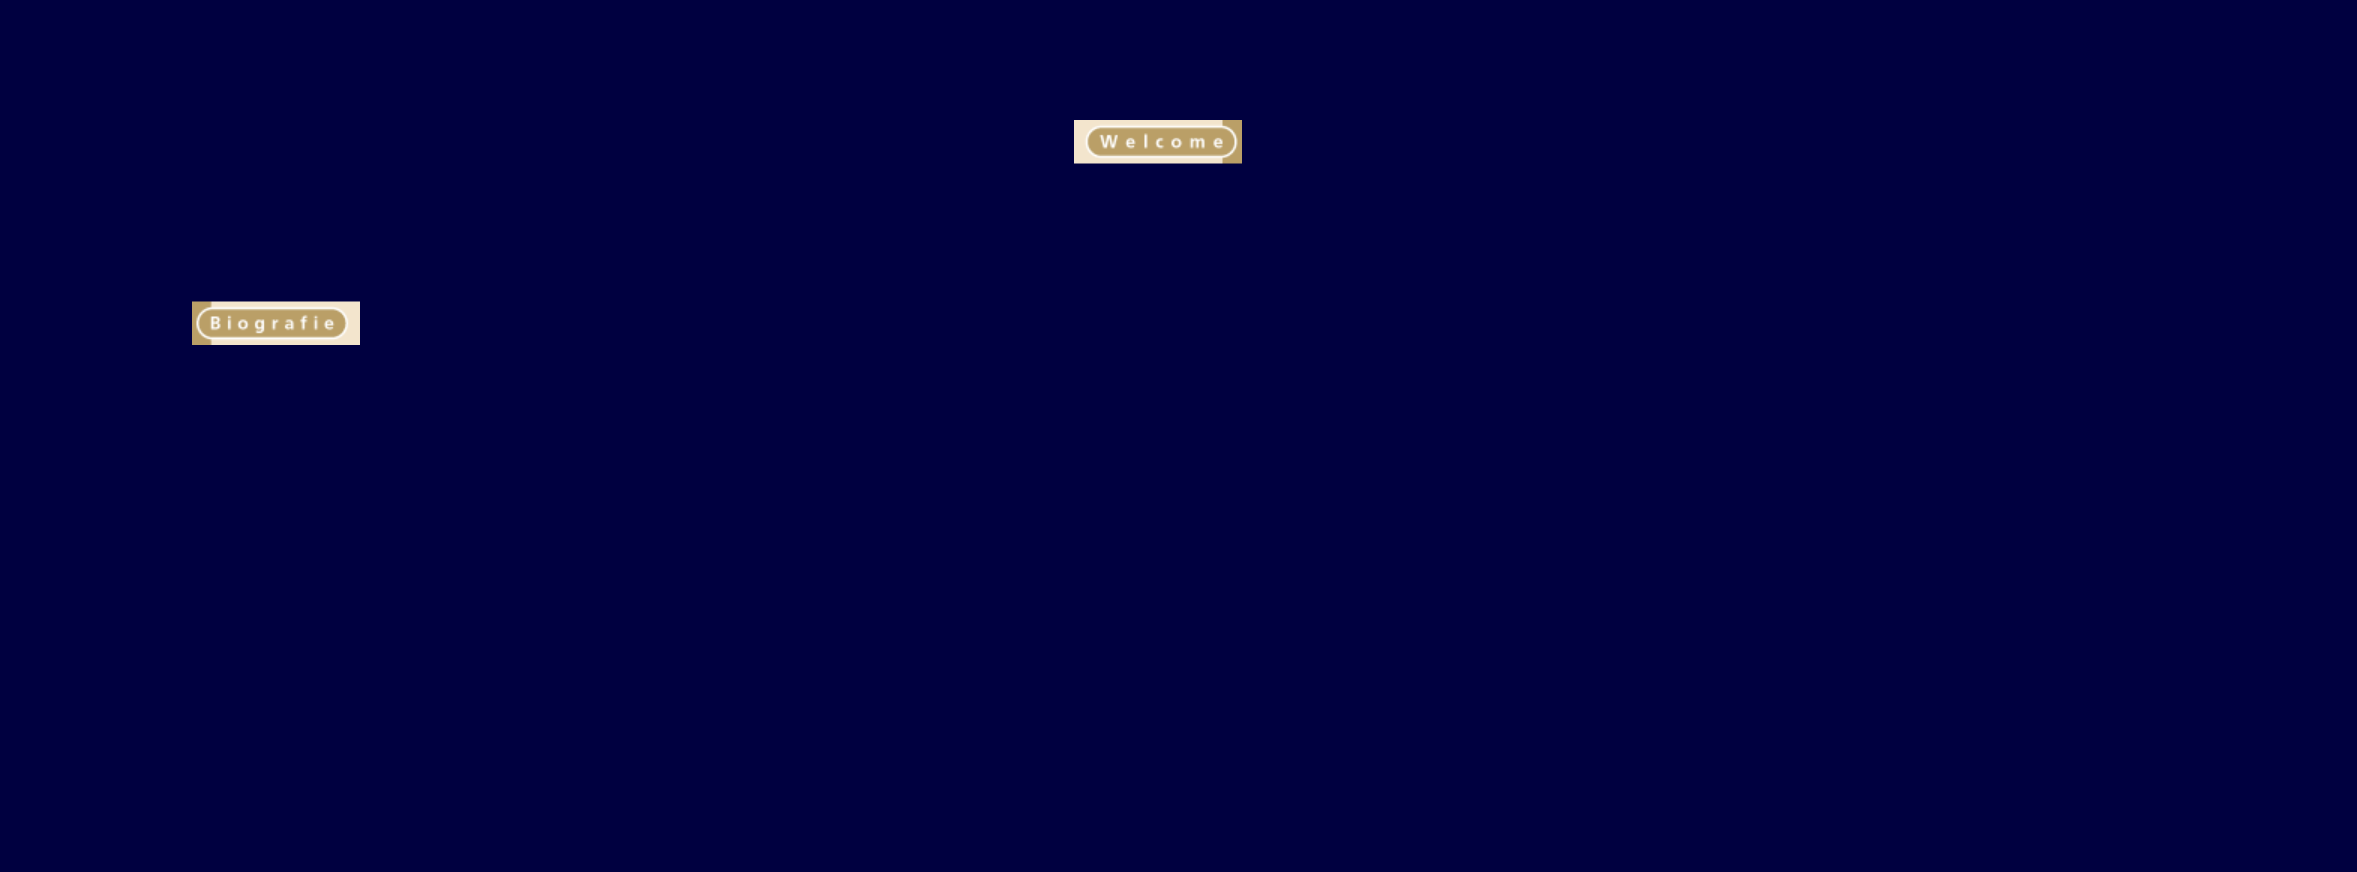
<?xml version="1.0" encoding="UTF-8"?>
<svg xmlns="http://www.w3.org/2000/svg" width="2357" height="872">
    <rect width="100%" height="100%" fill="#000040"/>
    <image x="1074" y="120" width="168" height="44" href="img_01.png"/>
    <image x="192" y="301" width="168" height="44" href="img_02.png"/>
</svg>
